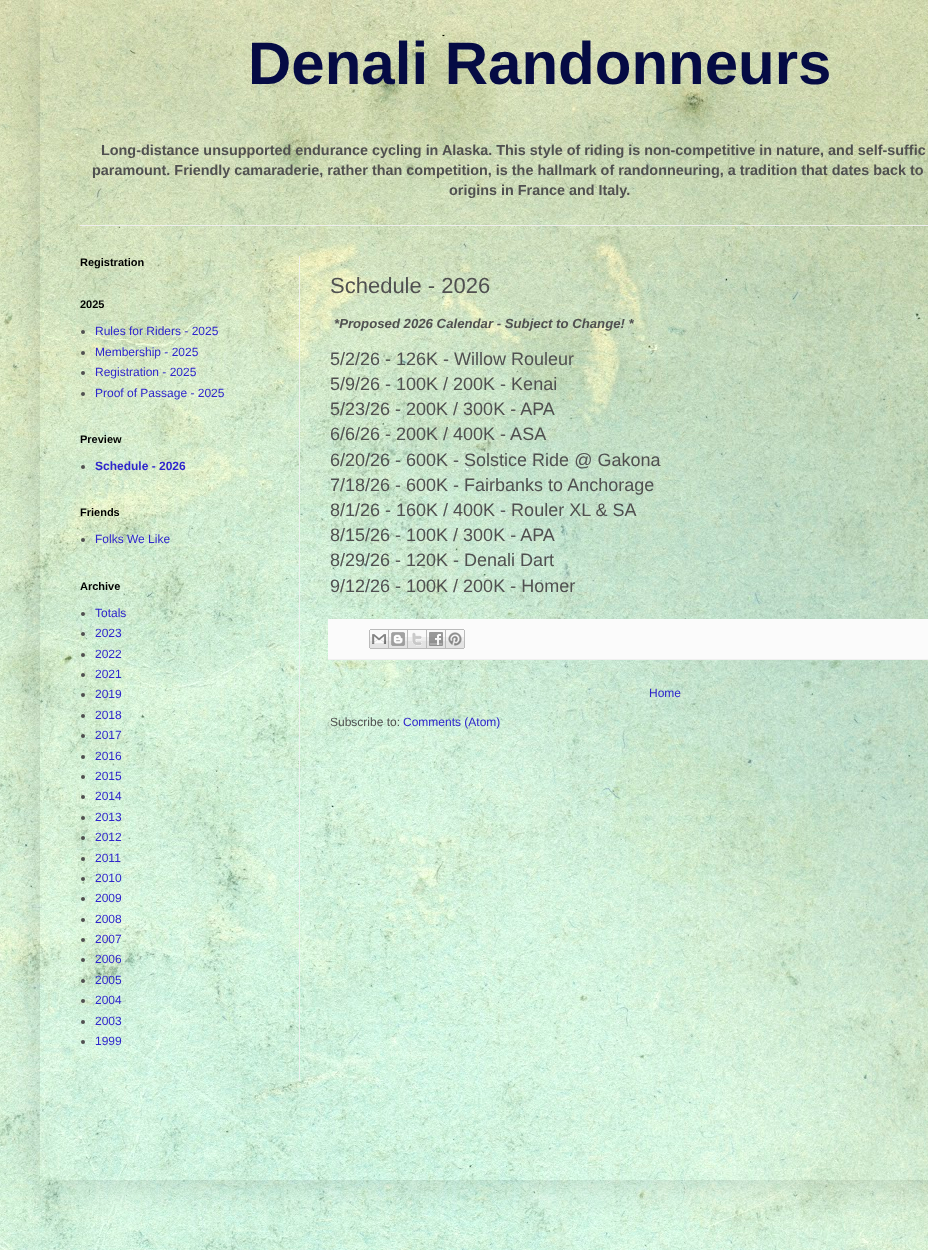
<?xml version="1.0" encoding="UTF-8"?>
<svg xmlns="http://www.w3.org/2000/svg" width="928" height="1250">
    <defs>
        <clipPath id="clip1"><path d="M 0 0 H 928 V 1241 H 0 Z M 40 -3 H 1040 V 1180 H 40 Z" clip-rule="evenodd"/></clipPath>
        <filter id="blur1" x="-50%" y="-200%" width="200%" height="500%"><feGaussianBlur stdDeviation="20"/></filter>
    </defs>
    <rect width="100%" height="100%" fill="#FFFFFF"/>
    <image x="0" y="0" width="928" height="1250" href="img_01.png"/>
    <g clip-path="url(#clip1)">
        <rect x="40" y="-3" width="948" height="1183" fill="#000000" fill-opacity="0.15" filter="url(#blur1)"/>
    </g>
    <text x="248" y="84" font-family="Liberation Sans" font-size="60" font-weight="700" fill="#050B44">Denali Randonneurs</text>
    <text x="101" y="155" font-family="Liberation Sans" font-size="14.4" font-weight="700" fill="#505050">Long-distance unsupported endurance cycling in Alaska. This style of riding is non-competitive in nature, and self-suffic</text>
    <text x="92" y="175" font-family="Liberation Sans" font-size="14.4" font-weight="700" fill="#505050">paramount. Friendly camaraderie, rather than competition, is the hallmark of randonneuring, a tradition that dates back to</text>
    <text x="449" y="195" font-family="Liberation Sans" font-size="14.4" font-weight="700" fill="#505050">origins in France and Italy.</text>
    <rect x="80" y="225" width="848" height="1" fill="#EEEEEE"/>
    <rect x="299" y="256" width="1" height="825" fill="#F0F0F0"/>
    <text x="80" y="266" font-family="Liberation Sans" font-size="11" font-weight="700" fill="#000000">Registration</text>
    <text x="80" y="308" font-family="Liberation Sans" font-size="11" font-weight="700" fill="#000000">2025</text>
    <circle cx="83" cy="332" r="2" fill="#505050"/>
    <text x="95" y="335" font-family="Liberation Sans" font-size="12" fill="#2E25CC">Rules for Riders - 2025</text>
    <circle cx="83" cy="353" r="2" fill="#505050"/>
    <text x="95" y="356" font-family="Liberation Sans" font-size="12" fill="#2E25CC">Membership - 2025</text>
    <circle cx="83" cy="373" r="2" fill="#505050"/>
    <text x="95" y="376" font-family="Liberation Sans" font-size="12" fill="#2E25CC">Registration - 2025</text>
    <circle cx="83" cy="394" r="2" fill="#505050"/>
    <text x="95" y="397" font-family="Liberation Sans" font-size="12" fill="#2E25CC">Proof of Passage - 2025</text>
    <text x="80" y="443" font-family="Liberation Sans" font-size="11" font-weight="700" fill="#000000">Preview</text>
    <circle cx="83" cy="467" r="2" fill="#505050"/>
    <text x="95" y="470" font-family="Liberation Sans" font-size="12" font-weight="700" fill="#2E25CC">Schedule - 2026</text>
    <text x="80" y="516" font-family="Liberation Sans" font-size="11" font-weight="700" fill="#000000">Friends</text>
    <circle cx="83" cy="540" r="2" fill="#505050"/>
    <text x="95" y="543" font-family="Liberation Sans" font-size="12" fill="#2E25CC">Folks We Like</text>
    <text x="80" y="590" font-family="Liberation Sans" font-size="11" font-weight="700" fill="#000000">Archive</text>
    <circle cx="83" cy="614" r="2" fill="#505050"/>
    <text x="95" y="617" font-family="Liberation Sans" font-size="12" fill="#2E25CC">Totals</text>
    <circle cx="83" cy="634" r="2" fill="#505050"/>
    <text x="95" y="637" font-family="Liberation Sans" font-size="12" fill="#2E25CC">2023</text>
    <circle cx="83" cy="655" r="2" fill="#505050"/>
    <text x="95" y="658" font-family="Liberation Sans" font-size="12" fill="#2E25CC">2022</text>
    <circle cx="83" cy="675" r="2" fill="#505050"/>
    <text x="95" y="678" font-family="Liberation Sans" font-size="12" fill="#2E25CC">2021</text>
    <circle cx="83" cy="695" r="2" fill="#505050"/>
    <text x="95" y="698" font-family="Liberation Sans" font-size="12" fill="#2E25CC">2019</text>
    <circle cx="83" cy="716" r="2" fill="#505050"/>
    <text x="95" y="719" font-family="Liberation Sans" font-size="12" fill="#2E25CC">2018</text>
    <circle cx="83" cy="736" r="2" fill="#505050"/>
    <text x="95" y="739" font-family="Liberation Sans" font-size="12" fill="#2E25CC">2017</text>
    <circle cx="83" cy="757" r="2" fill="#505050"/>
    <text x="95" y="760" font-family="Liberation Sans" font-size="12" fill="#2E25CC">2016</text>
    <circle cx="83" cy="777" r="2" fill="#505050"/>
    <text x="95" y="780" font-family="Liberation Sans" font-size="12" fill="#2E25CC">2015</text>
    <circle cx="83" cy="797" r="2" fill="#505050"/>
    <text x="95" y="800" font-family="Liberation Sans" font-size="12" fill="#2E25CC">2014</text>
    <circle cx="83" cy="818" r="2" fill="#505050"/>
    <text x="95" y="821" font-family="Liberation Sans" font-size="12" fill="#2E25CC">2013</text>
    <circle cx="83" cy="838" r="2" fill="#505050"/>
    <text x="95" y="841" font-family="Liberation Sans" font-size="12" fill="#2E25CC">2012</text>
    <circle cx="83" cy="859" r="2" fill="#505050"/>
    <text x="95" y="862" font-family="Liberation Sans" font-size="12" fill="#2E25CC">2011</text>
    <circle cx="83" cy="879" r="2" fill="#505050"/>
    <text x="95" y="882" font-family="Liberation Sans" font-size="12" fill="#2E25CC">2010</text>
    <circle cx="83" cy="899" r="2" fill="#505050"/>
    <text x="95" y="902" font-family="Liberation Sans" font-size="12" fill="#2E25CC">2009</text>
    <circle cx="83" cy="920" r="2" fill="#505050"/>
    <text x="95" y="923" font-family="Liberation Sans" font-size="12" fill="#2E25CC">2008</text>
    <circle cx="83" cy="940" r="2" fill="#505050"/>
    <text x="95" y="943" font-family="Liberation Sans" font-size="12" fill="#2E25CC">2007</text>
    <circle cx="83" cy="960" r="2" fill="#505050"/>
    <text x="95" y="963" font-family="Liberation Sans" font-size="12" fill="#2E25CC">2006</text>
    <circle cx="83" cy="981" r="2" fill="#505050"/>
    <text x="95" y="984" font-family="Liberation Sans" font-size="12" fill="#2E25CC">2005</text>
    <circle cx="83" cy="1001" r="2" fill="#505050"/>
    <text x="95" y="1004" font-family="Liberation Sans" font-size="12" fill="#2E25CC">2004</text>
    <circle cx="83" cy="1022" r="2" fill="#505050"/>
    <text x="95" y="1025" font-family="Liberation Sans" font-size="12" fill="#2E25CC">2003</text>
    <circle cx="83" cy="1042" r="2" fill="#505050"/>
    <text x="95" y="1045" font-family="Liberation Sans" font-size="12" fill="#2E25CC">1999</text>
    <text x="330" y="293" font-family="Liberation Sans" font-size="22" fill="#505050">Schedule - 2026</text>
    <text x="334" y="328" font-family="Liberation Sans" font-size="13.2" font-weight="700" font-style="italic" fill="#505050">*Proposed 2026 Calendar - Subject to Change! *</text>
    <text font-family="Liberation Sans" font-size="18" fill="#505050">
        <tspan x="330" y="365">5/2/26 - 126K - Willow Rouleur</tspan>
        <tspan x="330" y="390">5/9/26 - 100K / 200K - Kenai</tspan>
        <tspan x="330" y="415">5/23/26 - 200K / 300K - APA</tspan>
        <tspan x="330" y="440">6/6/26 - 200K / 400K - ASA</tspan>
        <tspan x="330" y="466">6/20/26 - 600K - Solstice Ride @ Gakona</tspan>
        <tspan x="330" y="491">7/18/26 - 600K - Fairbanks to Anchorage</tspan>
        <tspan x="330" y="516">8/1/26 - 160K / 400K - Rouler XL &amp; SA</tspan>
        <tspan x="330" y="541">8/15/26 - 100K / 300K - APA</tspan>
        <tspan x="330" y="566">8/29/26 - 120K - Denali Dart</tspan>
        <tspan x="330" y="592">9/12/26 - 100K / 200K - Homer</tspan>
    </text>
    <rect x="328" y="619" width="600" height="40" fill="#FBFBFB"/>
    <rect x="328" y="659" width="600" height="1" fill="#F0F0F0"/>
    <image x="369" y="629" width="20" height="20" href="img_02.png"/>
    <image x="389" y="629" width="19" height="20" href="img_03.png"/>
    <image x="408" y="629" width="19" height="20" href="img_04.png"/>
    <image x="427" y="629" width="19" height="20" href="img_05.png"/>
    <image x="446" y="629" width="19" height="20" href="img_06.png"/>
    <text x="649" y="697" font-family="Liberation Sans" font-size="12" fill="#2E25CC">Home</text>
    <text x="330" y="726" font-family="Liberation Sans" font-size="12" fill="#505050">Subscribe to:</text>
    <text x="403" y="726" font-family="Liberation Sans" font-size="12" fill="#2E25CC">Comments (Atom)</text>
</svg>
